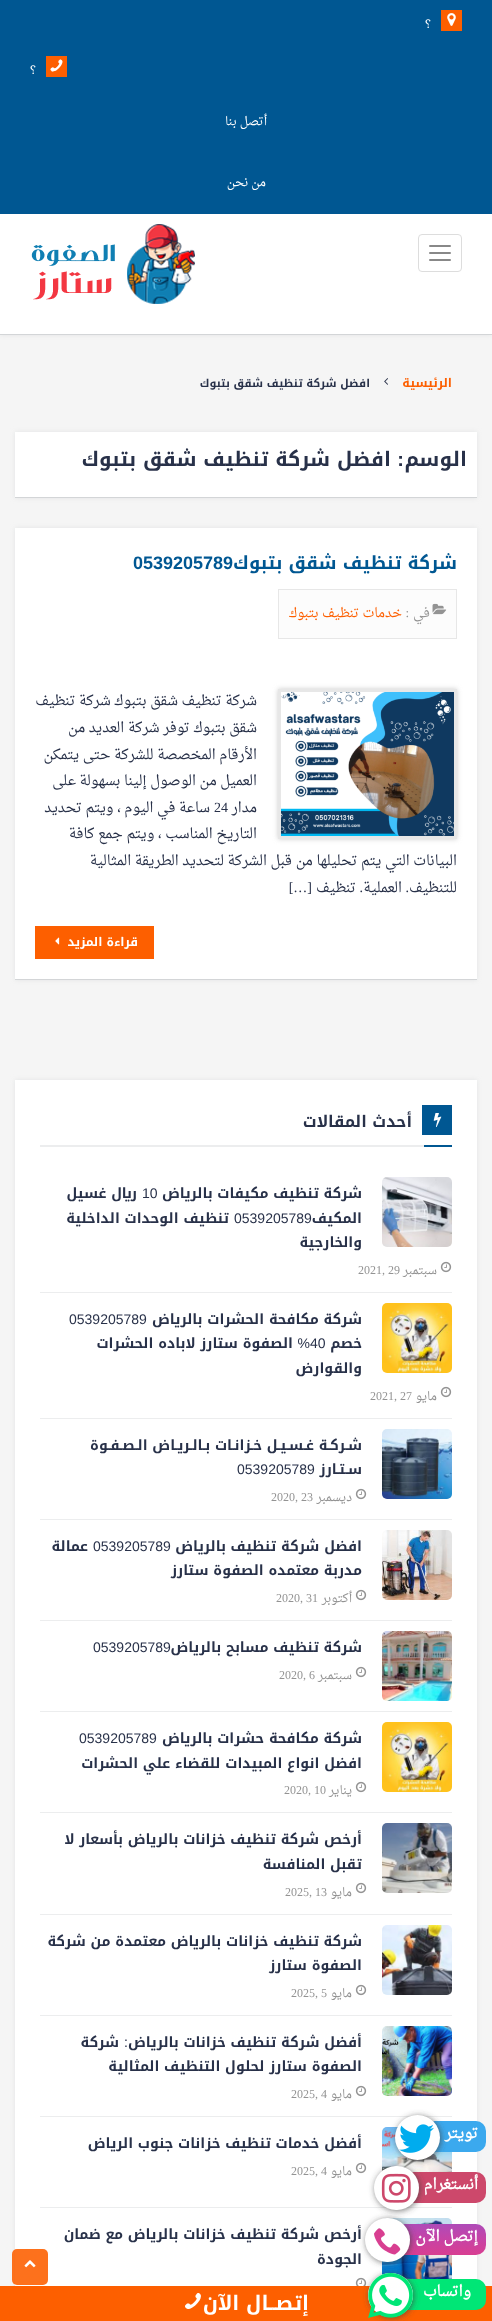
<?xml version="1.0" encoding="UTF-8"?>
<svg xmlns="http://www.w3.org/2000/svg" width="492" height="2321">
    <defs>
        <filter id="blur1" x="-50%" y="-200%" width="200%" height="500%"><feGaussianBlur stdDeviation="2.5"/></filter>
        <linearGradient id="g1" gradientUnits="userSpaceOnUse" x1="441" y1="2255" x2="441" y2="2224"><stop offset="0" stop-color="#D83F91"/><stop offset="0.25" stop-color="#D0409B"/><stop offset="0.5" stop-color="#C743A5"/><stop offset="0.75" stop-color="#BB47AF"/><stop offset="1" stop-color="#AE4BB8"/></linearGradient>
        <filter id="blur2" x="-50%" y="-200%" width="200%" height="500%"><feGaussianBlur stdDeviation="3"/></filter>
    </defs>
    <rect width="100%" height="100%" fill="#F5F5F5"/>
    <rect x="0" y="0" width="492" height="335" fill="#E2E3E4" filter="url(#blur1)"/>
    <rect x="0" y="334" width="492" height="1" fill="#D3D5D7"/>
    <rect x="0" y="0" width="492" height="214" fill="#005792"/>
    <rect x="441" y="10" width="21" height="21" fill="#FD5F00"/>
    <image x="447" y="13" width="9" height="13" href="img_01.png"/>
    <text x="431" y="28" font-family="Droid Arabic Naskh" font-size="12" direction="rtl" fill="#FFFFFF">؟</text>
    <rect x="46" y="56" width="21" height="21" fill="#FD5F00"/>
    <text x="49" y="73" font-family="'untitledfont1'" font-size="15" fill="#FFFFFF">&amp;</text>
    <text x="36" y="74" font-family="Droid Arabic Naskh" font-size="12" direction="rtl" fill="#FFFFFF">؟</text>
    <text x="267" y="125" font-family="Droid Arabic Naskh" font-size="12" direction="rtl" fill="#FFFFFF">أتصل بنا</text>
    <text x="266" y="186" font-family="Droid Arabic Naskh" font-size="12" direction="rtl" fill="#FFFFFF">من نحن</text>
    <rect x="0" y="214" width="492" height="120" fill="#FFFFFF"/>
    <rect x="418.5" y="234.5" width="43" height="37" rx="3.5" fill="none" stroke="#DDDDDD"/>
    <rect x="429" y="245" width="22" height="2" rx="1" fill="#888888"/>
    <rect x="429" y="252" width="22" height="2" rx="1" fill="#888888"/>
    <rect x="429" y="259" width="22" height="2" rx="1" fill="#888888"/>
    <image x="31" y="224" width="164" height="80" href="img_02.png"/>
    <text x="452" y="387" font-family="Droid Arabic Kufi" font-size="12" font-weight="700" direction="rtl" fill="#FD5F00">الرئيسية</text>
    <image x="384" y="378" width="4" height="7" href="img_03.png"/>
    <text x="370" y="387" font-family="Droid Arabic Kufi" font-size="11" font-weight="700" direction="rtl" fill="#283149">افضل شركة تنظيف شقق بتبوك</text>
    <rect x="15" y="432" width="462" height="66" fill="#E2E3E4" filter="url(#blur1)"/>
    <rect x="15" y="432" width="462" height="65" fill="#FFFFFF"/>
    <rect x="15" y="497" width="462" height="1" fill="#D3D5D7"/>
    <text x="467" y="466" font-family="Droid Arabic Kufi" font-size="20" font-weight="700" direction="rtl" fill="#283149">الوسم</text>
    <text x="404" y="466" font-family="Liberation Sans" font-size="20" font-weight="700" direction="rtl" fill="#283149">:</text>
    <text x="391" y="466" font-family="Droid Arabic Kufi" font-size="20" font-weight="700" direction="rtl" fill="#283149">افضل شركة تنظيف شقق بتبوك</text>
    <rect x="15" y="528" width="462" height="452" fill="#E2E3E4" filter="url(#blur1)"/>
    <rect x="15" y="528" width="462" height="451" fill="#FFFFFF"/>
    <rect x="15" y="979" width="462" height="1" fill="#D3D5D7"/>
    <text x="457" y="569" font-family="Droid Arabic Kufi" font-size="18" font-weight="700" direction="rtl" fill="#005792">شركة تنظيف شقق بتبوك</text>
    <text x="133" y="569" font-family="Liberation Sans" font-size="18" font-weight="700" fill="#005792">0539205789</text>
    <rect x="278.5" y="589.5" width="178" height="49" fill="#FCFCFC" stroke="#E7E7E7"/>
    <image x="432" y="603" width="15" height="12" href="img_04.png"/>
    <text x="430" y="617" font-family="Droid Arabic Naskh" font-size="13" direction="rtl" fill="#939393">في</text>
    <text x="409" y="617" font-family="Liberation Serif" font-size="13" direction="rtl" fill="#939393">:</text>
    <text x="402" y="617" font-family="Droid Arabic Naskh" font-size="13" direction="rtl" fill="#FD5F00">خدمات تنظيف بتبوك</text>
    <rect x="278" y="689" width="179" height="150" fill="#CCCCCC" filter="url(#blur1)"/>
    <rect x="279.5" y="690.5" width="176" height="147" fill="none" stroke="#E7E7E7" stroke-width="3"/>
    <image x="281" y="692" width="173" height="144" href="img_05.png"/>
    <text font-family="Droid Arabic Naskh" font-size="14" direction="rtl" fill="#283149">
        <tspan x="257" y="705">شركة تنظيف شقق بتبوك شركة تنظيف</tspan>
        <tspan x="257" y="732">شقق بتبوك توفر شركة العديد من</tspan>
        <tspan x="257" y="759">الأرقام المخصصة للشركة حتى يتمكن</tspan>
        <tspan x="257" y="785">العميل من الوصول إلينا بسهولة على</tspan>
        <tspan x="257" y="812">مدار</tspan>
    </text>
    <text x="214" y="812" font-family="Liberation Serif" font-size="14" fill="#283149">24</text>
    <text x="210" y="812" font-family="Droid Arabic Naskh" font-size="14" direction="rtl" fill="#283149">ساعة في اليوم ، ويتم تحديد</text>
    <text x="257" y="838" font-family="Droid Arabic Naskh" font-size="14" direction="rtl" fill="#283149">التاريخ المناسب ، ويتم جمع كافة</text>
    <text font-family="Droid Arabic Naskh" font-size="14" direction="rtl" fill="#283149">
        <tspan x="457" y="865">البيانات التي يتم تحليلها من قبل الشركة لتحديد الطريقة المثالية</tspan>
        <tspan x="457" y="892">للتنظيف</tspan>
    </text>
    <text x="409" y="892" font-family="Liberation Serif" font-size="14" direction="rtl" fill="#283149">.</text>
    <text x="402" y="892" font-family="Droid Arabic Naskh" font-size="14" direction="rtl" fill="#283149">العملية</text>
    <text x="363" y="892" font-family="Liberation Serif" font-size="14" direction="rtl" fill="#283149">.</text>
    <text x="356" y="892" font-family="Droid Arabic Naskh" font-size="14" direction="rtl" fill="#283149">تنظيف</text>
    <text x="312" y="892" font-family="Liberation Serif" font-size="14" direction="rtl" fill="#283149">[…]</text>
    <rect x="35" y="926" width="119" height="33" fill="#FD5F00"/>
    <text x="138" y="946" font-family="Droid Arabic Kufi" font-size="12" font-weight="700" direction="rtl" fill="#FFFFFF">قراءة المزيد</text>
    <image x="55" y="937" width="5" height="8" href="img_06.png"/>
    <rect x="15" y="1080" width="462" height="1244" fill="#E2E3E4" filter="url(#blur1)"/>
    <rect x="15" y="1080" width="462" height="1206" fill="#FFFFFF"/>
    <rect x="40" y="1145" width="384" height="2" fill="#ECEDEE"/>
    <rect x="422" y="1105" width="30" height="30" fill="#005792"/>
    <text x="430" y="1127" font-family="'untitledfont1'" font-size="15" fill="#FFFFFF">:</text>
    <text x="412" y="1127" font-family="Droid Arabic Kufi" font-size="16" font-weight="700" direction="rtl" fill="#283149">أحدث المقالات</text>
    <rect x="424" y="1145" width="28" height="2" fill="#005792"/>
    <rect x="40" y="1292" width="412" height="1" fill="#ECEDEE"/>
    <image x="382" y="1177" width="70" height="70" href="img_07.png"/>
    <text x="362" y="1198" font-family="Droid Arabic Kufi" font-size="14" font-weight="700" direction="rtl" fill="#283149">شركة تنظيف مكيفات بالرياض</text>
    <text x="142" y="1198" font-family="Liberation Sans" font-size="14" fill="#283149">10</text>
    <text x="137" y="1198" font-family="Droid Arabic Kufi" font-size="14" font-weight="700" direction="rtl" fill="#283149">ريال غسيل</text>
    <text x="362" y="1223" font-family="Droid Arabic Kufi" font-size="14" font-weight="700" direction="rtl" fill="#283149">المكيف</text>
    <text x="234" y="1223" font-family="Liberation Sans" font-size="14" fill="#283149">0539205789</text>
    <text x="229" y="1223" font-family="Droid Arabic Kufi" font-size="14" font-weight="700" direction="rtl" fill="#283149">تنظيف الوحدات الداخلية</text>
    <text x="362" y="1247" font-family="Droid Arabic Kufi" font-size="14" font-weight="700" direction="rtl" fill="#283149">والخارجية</text>
    <image x="440" y="1261" width="12" height="12" href="img_08.png"/>
    <text x="437" y="1274" font-family="Droid Arabic Naskh" font-size="12" direction="rtl" fill="#939393">سبتمبر</text>
    <text x="358" y="1274" font-family="Liberation Serif" font-size="12" fill="#939393">2021, 29</text>
    <rect x="40" y="1418" width="412" height="1" fill="#ECEDEE"/>
    <image x="382" y="1303" width="70" height="70" href="img_09.png"/>
    <text x="362" y="1324" font-family="Droid Arabic Kufi" font-size="14" font-weight="700" direction="rtl" fill="#283149">شركة مكافحة الحشرات بالرياض</text>
    <text x="69" y="1324" font-family="Liberation Sans" font-size="14" fill="#283149">0539205789</text>
    <text x="362" y="1348" font-family="Droid Arabic Kufi" font-size="14" font-weight="700" direction="rtl" fill="#283149">خصم</text>
    <text x="310" y="1348" font-family="Liberation Sans" font-size="14" fill="#283149">40</text>
    <text x="310" y="1348" font-family="Liberation Sans" font-size="14" direction="rtl" fill="#283149">%</text>
    <text x="293" y="1348" font-family="Droid Arabic Kufi" font-size="14" font-weight="700" direction="rtl" fill="#283149">الصفوة ستارز لاباده الحشرات</text>
    <text x="362" y="1373" font-family="Droid Arabic Kufi" font-size="14" font-weight="700" direction="rtl" fill="#283149">والقوارض</text>
    <image x="440" y="1386" width="12" height="12" href="img_08.png"/>
    <text x="437" y="1400" font-family="Droid Arabic Naskh" font-size="12" direction="rtl" fill="#939393">مايو</text>
    <text x="370" y="1400" font-family="Liberation Serif" font-size="12" fill="#939393">2021, 27</text>
    <rect x="40" y="1519" width="412" height="1" fill="#ECEDEE"/>
    <image x="382" y="1429" width="70" height="70" href="img_10.png"/>
    <text font-family="Droid Arabic Kufi" font-size="14" font-weight="700" direction="rtl" fill="#283149">
        <tspan x="362" y="1450">شـركـة غـسـيـل خـزانـات بـالـريـاض الـصـفـوة</tspan>
        <tspan x="362" y="1474">سـتـارز</tspan>
    </text>
    <text x="237" y="1474" font-family="Liberation Sans" font-size="14" fill="#283149">0539205789</text>
    <image x="355" y="1488" width="12" height="12" href="img_08.png"/>
    <text x="352" y="1501" font-family="Droid Arabic Naskh" font-size="12" direction="rtl" fill="#939393">ديسمبر</text>
    <text x="271" y="1501" font-family="Liberation Serif" font-size="12" fill="#939393">2020, 23</text>
    <rect x="40" y="1620" width="412" height="1" fill="#ECEDEE"/>
    <image x="382" y="1530" width="70" height="70" href="img_11.png"/>
    <text x="362" y="1551" font-family="Droid Arabic Kufi" font-size="14" font-weight="700" direction="rtl" fill="#283149">افضل شركة تنظيف بالرياض</text>
    <text x="93" y="1551" font-family="Liberation Sans" font-size="14" fill="#283149">0539205789</text>
    <text x="88" y="1551" font-family="Droid Arabic Kufi" font-size="14" font-weight="700" direction="rtl" fill="#283149">عمالة</text>
    <text x="362" y="1575" font-family="Droid Arabic Kufi" font-size="14" font-weight="700" direction="rtl" fill="#283149">مدربة معتمده الصفوة ستارز</text>
    <image x="355" y="1589" width="12" height="12" href="img_08.png"/>
    <text x="352" y="1602" font-family="Droid Arabic Naskh" font-size="12" direction="rtl" fill="#939393">أكتوبر</text>
    <text x="276" y="1602" font-family="Liberation Serif" font-size="12" fill="#939393">2020, 31</text>
    <rect x="40" y="1711" width="412" height="1" fill="#ECEDEE"/>
    <image x="382" y="1631" width="70" height="70" href="img_12.png"/>
    <text x="362" y="1652" font-family="Droid Arabic Kufi" font-size="14" font-weight="700" direction="rtl" fill="#283149">شركة تنظيف مسابح بالرياض</text>
    <text x="93" y="1652" font-family="Liberation Sans" font-size="14" fill="#283149">0539205789</text>
    <image x="355" y="1666" width="12" height="12" href="img_08.png"/>
    <text x="352" y="1679" font-family="Droid Arabic Naskh" font-size="12" direction="rtl" fill="#939393">سبتمبر</text>
    <text x="279" y="1679" font-family="Liberation Serif" font-size="12" fill="#939393">2020, 6</text>
    <rect x="40" y="1812" width="412" height="1" fill="#ECEDEE"/>
    <image x="382" y="1722" width="70" height="70" href="img_13.png"/>
    <text x="362" y="1743" font-family="Droid Arabic Kufi" font-size="14" font-weight="700" direction="rtl" fill="#283149">شركة مكافحة حشرات بالرياض</text>
    <text x="79" y="1743" font-family="Liberation Sans" font-size="14" fill="#283149">0539205789</text>
    <text x="362" y="1768" font-family="Droid Arabic Kufi" font-size="14" font-weight="700" direction="rtl" fill="#283149">افضل انواع المبيدات للقضاء علي الحشرات</text>
    <image x="355" y="1781" width="12" height="12" href="img_08.png"/>
    <text x="352" y="1794" font-family="Droid Arabic Naskh" font-size="12" direction="rtl" fill="#939393">يناير</text>
    <text x="284" y="1794" font-family="Liberation Serif" font-size="12" fill="#939393">2020, 10</text>
    <rect x="40" y="1914" width="412" height="1" fill="#ECEDEE"/>
    <image x="382" y="1823" width="70" height="70" href="img_14.png"/>
    <text font-family="Droid Arabic Kufi" font-size="14" font-weight="700" direction="rtl" fill="#283149">
        <tspan x="362" y="1844">أرخص شركة تنظيف خزانات بالرياض بأسعار لا</tspan>
        <tspan x="362" y="1869">تقبل المنافسة</tspan>
    </text>
    <image x="355" y="1882" width="12" height="12" href="img_08.png"/>
    <text x="352" y="1896" font-family="Droid Arabic Naskh" font-size="12" direction="rtl" fill="#939393">مايو</text>
    <text x="285" y="1896" font-family="Liberation Serif" font-size="12" fill="#939393">2025, 13</text>
    <rect x="40" y="2015" width="412" height="1" fill="#ECEDEE"/>
    <image x="382" y="1925" width="70" height="70" href="img_15.png"/>
    <text font-family="Droid Arabic Kufi" font-size="14" font-weight="700" direction="rtl" fill="#283149">
        <tspan x="362" y="1946">شركة تنظيف خزانات بالرياض معتمدة من شركة</tspan>
        <tspan x="362" y="1970">الصفوة ستارز</tspan>
    </text>
    <image x="355" y="1984" width="12" height="12" href="img_08.png"/>
    <text x="352" y="1997" font-family="Droid Arabic Naskh" font-size="12" direction="rtl" fill="#939393">مايو</text>
    <text x="291" y="1997" font-family="Liberation Serif" font-size="12" fill="#939393">2025, 5</text>
    <rect x="40" y="2116" width="412" height="1" fill="#ECEDEE"/>
    <image x="382" y="2026" width="70" height="70" href="img_16.png"/>
    <text x="362" y="2047" font-family="Droid Arabic Kufi" font-size="14" font-weight="700" direction="rtl" fill="#283149">أفضل شركة تنظيف خزانات بالرياض</text>
    <text x="128" y="2047" font-family="Liberation Sans" font-size="14" direction="rtl" fill="#283149">:</text>
    <text x="119" y="2047" font-family="Droid Arabic Kufi" font-size="14" font-weight="700" direction="rtl" fill="#283149">شركة</text>
    <text x="362" y="2071" font-family="Droid Arabic Kufi" font-size="14" font-weight="700" direction="rtl" fill="#283149">الصفوة ستارز لحلول التنظيف المثالية</text>
    <image x="355" y="2085" width="12" height="12" href="img_08.png"/>
    <text x="352" y="2098" font-family="Droid Arabic Naskh" font-size="12" direction="rtl" fill="#939393">مايو</text>
    <text x="291" y="2098" font-family="Liberation Serif" font-size="12" fill="#939393">2025, 4</text>
    <rect x="40" y="2207" width="412" height="1" fill="#ECEDEE"/>
    <image x="382" y="2127" width="70" height="46" href="img_17.png"/>
    <text x="362" y="2148" font-family="Droid Arabic Kufi" font-size="14" font-weight="700" direction="rtl" fill="#283149">أفضل خدمات تنظيف خزانات جنوب الرياض</text>
    <image x="355" y="2162" width="12" height="12" href="img_08.png"/>
    <text x="352" y="2175" font-family="Droid Arabic Naskh" font-size="12" direction="rtl" fill="#939393">مايو</text>
    <text x="291" y="2175" font-family="Liberation Serif" font-size="12" fill="#939393">2025, 4</text>
    <image x="382" y="2218" width="70" height="62" href="img_18.png"/>
    <text font-family="Droid Arabic Kufi" font-size="14" font-weight="700" direction="rtl" fill="#283149">
        <tspan x="362" y="2239">أرخص شركة تنظيف خزانات بالرياض مع ضمان</tspan>
        <tspan x="362" y="2264">الجودة</tspan>
    </text>
    <image x="355" y="2277" width="12" height="9" href="img_19.png"/>
    <rect x="425" y="2121" width="61" height="31" rx="10" fill="#3BA9EE"/>
    <text x="478" y="2138" font-family="Droid Arabic Naskh" font-size="15" font-weight="700" direction="rtl" fill="#FFFFFF">تويتر</text>
    <rect x="404" y="2172" width="82" height="31" rx="10" fill="#CD486B"/>
    <rect x="395" y="2224" width="91" height="31" rx="10" fill="url(#g1)"/>
    <rect x="366" y="2219" width="45" height="44" rx="22" fill="#444444" fill-opacity="0.71" filter="url(#blur2)"/>
    <rect x="365" y="2218" width="45" height="44" rx="22" fill="#FFFFFF"/>
    <rect x="375" y="2167" width="45" height="44" rx="22" fill="#444444" fill-opacity="0.71" filter="url(#blur2)"/>
    <rect x="374" y="2166" width="45" height="44" rx="22" fill="#FFFFFF"/>
    <rect x="396" y="2116" width="45" height="45" rx="22.5" fill="#444444" fill-opacity="0.71" filter="url(#blur2)"/>
    <circle cx="417.5" cy="2137.5" r="22.5" fill="#FFFFFF"/>
    <image x="399" y="2124" width="35" height="29" href="img_20.png"/>
    <text x="478" y="2189" font-family="Droid Arabic Naskh" font-size="15" font-weight="700" direction="rtl" fill="#FFFFFF">أنستغرام</text>
    <image x="381" y="2173" width="30" height="30" href="img_21.png"/>
    <text x="478" y="2241" font-family="Droid Arabic Naskh" font-size="15" font-weight="700" direction="rtl" fill="#FFFFFF">إتصل الآن</text>
    <image x="374" y="2228" width="27" height="27" href="img_22.png"/>
    <rect x="0" y="2286" width="492" height="35" fill="#FD5F00"/>
    <rect x="398" y="2279" width="88" height="31" rx="10" fill="#00E676"/>
    <text x="471" y="2296" font-family="Droid Arabic Naskh" font-size="15" font-weight="700" direction="rtl" fill="#FFFFFF">واتساب</text>
    <rect x="369" y="2274" width="45" height="44" rx="22" fill="#444444" fill-opacity="0.71" filter="url(#blur2)"/>
    <rect x="368" y="2273" width="45" height="44" rx="22" fill="#FFFFFF"/>
    <image x="368" y="2273" width="45" height="45" href="img_23.png"/>
    <rect x="12" y="2249" width="36" height="36" rx="5" fill="#FD5F00" fill-opacity="0.89"/>
    <text x="24" y="2269" font-family="'untitledfont1'" font-size="12" fill="#FFFFFF">0</text>
    <text x="309" y="2310" font-family="Droid Arabic Kufi" font-size="20" font-weight="700" direction="rtl" fill="#FFFFFF">إتصــال الآن</text>
    <text x="183" y="2311" font-family="'untitledfont1'" font-size="20" fill="#FFFFFF">&amp;</text>
</svg>
